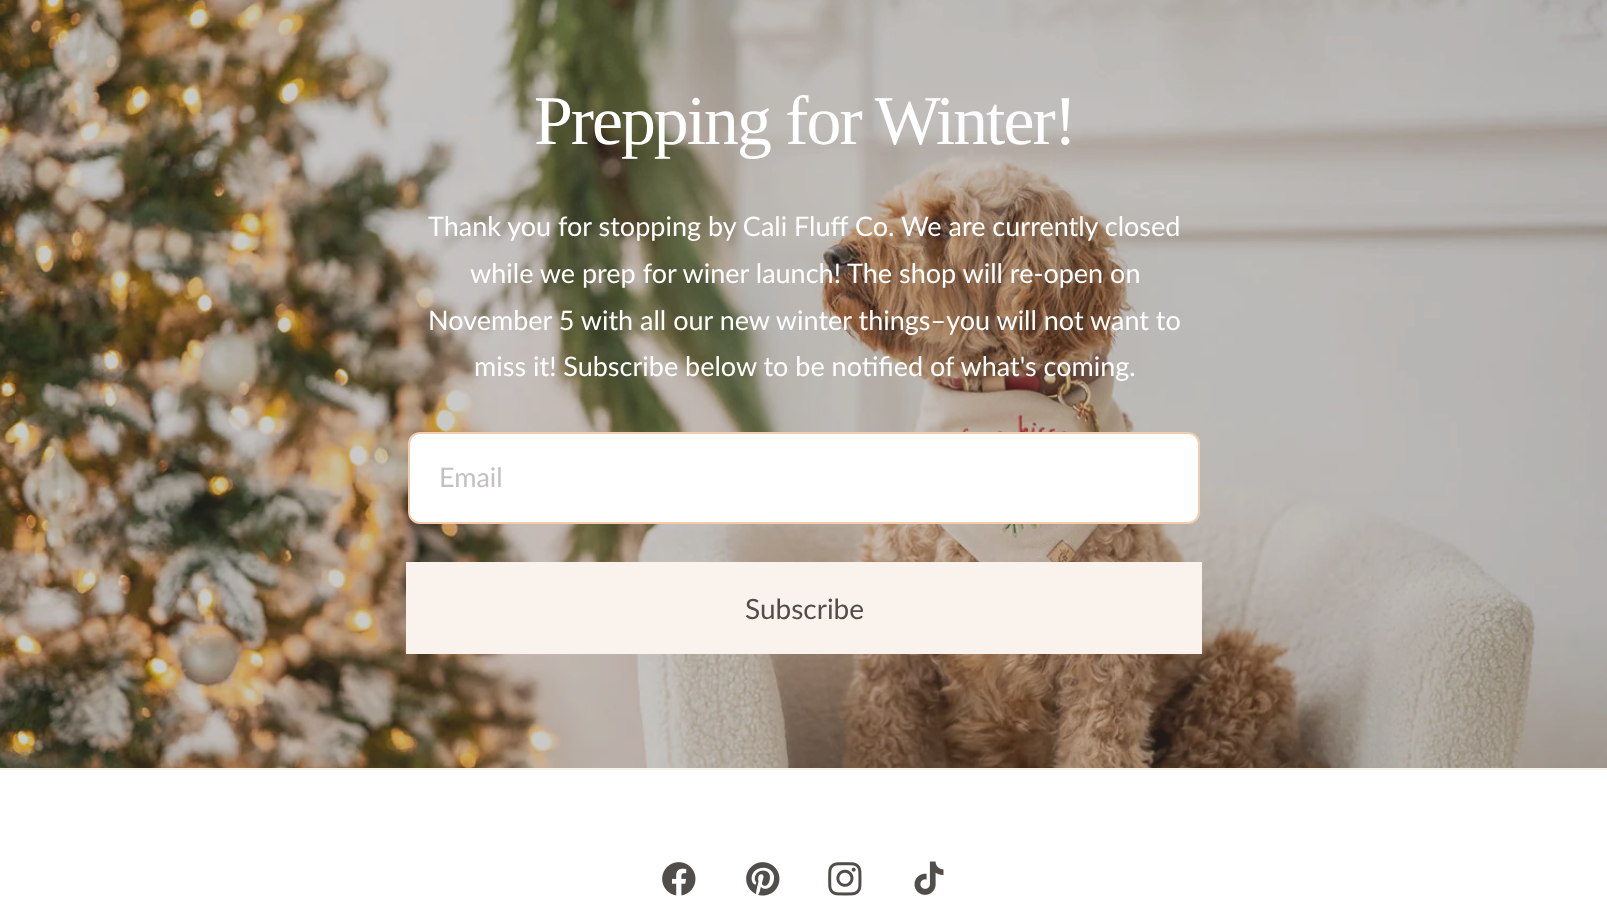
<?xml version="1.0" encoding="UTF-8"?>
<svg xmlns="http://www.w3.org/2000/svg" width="1607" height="898">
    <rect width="100%" height="100%" fill="#FFFFFF"/>
    <image x="0" y="0" width="1607" height="768" href="img_01.png"/>
    <text x="534" y="144" font-family="Liberation Serif" font-size="69.75" letter-spacing="-2" fill="#FFFFFF">Prepping for Winter!</text>
    <text x="428" y="236" font-family="Lato" font-size="27" fill="#FFFFFF">Thank you for stopping by Cali Fluff Co. We are currently closed</text>
    <text x="470" y="283" font-family="Lato" font-size="27" fill="#FFFFFF">while we prep for winer launch! The shop will re-open on</text>
    <text x="428" y="330" font-family="Lato" font-size="27" fill="#FFFFFF">November 5 with all our new winter things–you will not want to</text>
    <text x="474" y="376" font-family="Lato" font-size="27" fill="#FFFFFF">miss it! Subscribe below to be notified of what's coming.</text>
    <rect x="409" y="433" width="790" height="90" rx="11" fill="#FFFFFF" stroke="#F1CCAF" stroke-width="2"/>
    <text x="439" y="487" font-family="Lato" font-size="27" fill="#C2C1C0">Email</text>
    <rect x="406" y="562" width="796" height="92" fill="#F9F2ED"/>
    <text x="745" y="619" font-family="Lato" font-size="28" fill="#514D4B">Subscribe</text>
    <rect x="0" y="768" width="1607" height="2" fill="#F9F2ED"/>
    <image x="662" y="862" width="34" height="34" href="img_02.png"/>
    <image x="746" y="862" width="34" height="34" href="img_03.png"/>
    <image x="828" y="862" width="34" height="34" href="img_04.png"/>
    <image x="914" y="861" width="30" height="34" href="img_05.png"/>
</svg>
